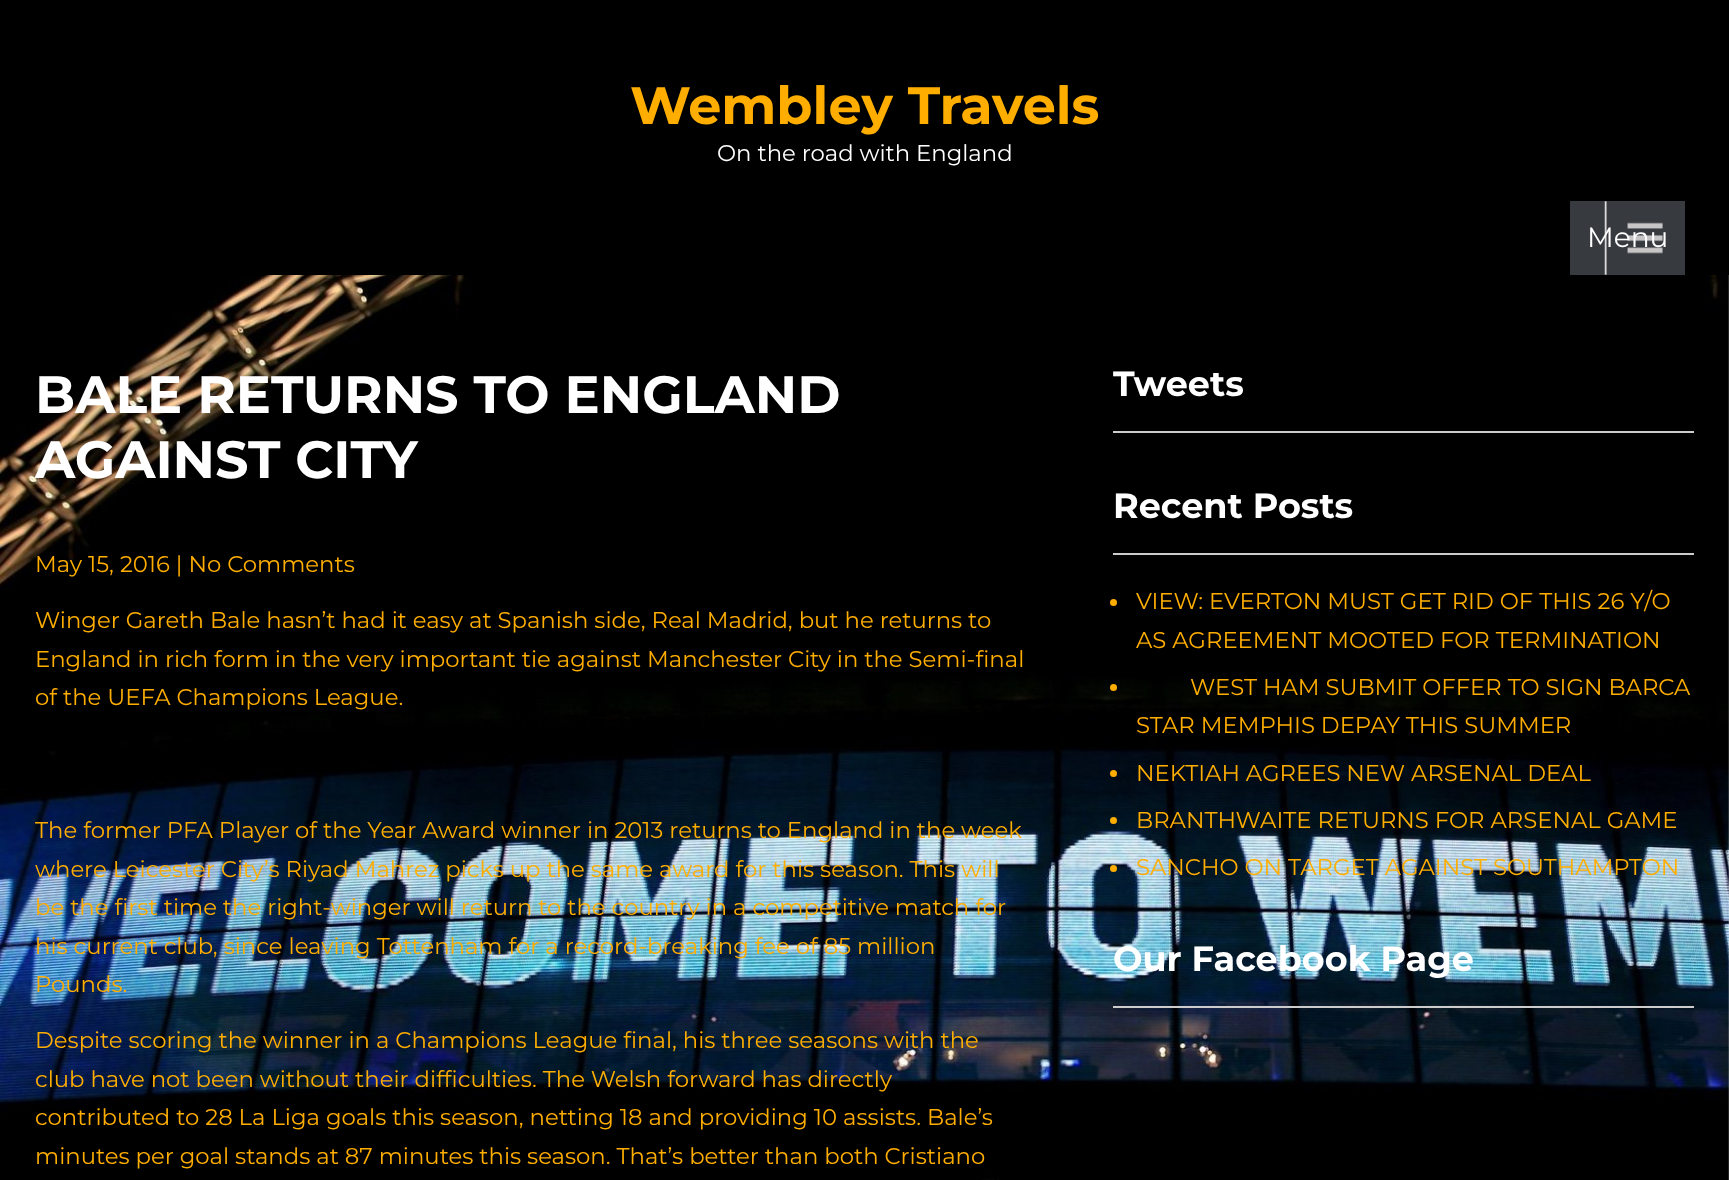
<?xml version="1.0" encoding="UTF-8"?>
<svg xmlns="http://www.w3.org/2000/svg" width="1729" height="1180">
    <rect width="100%" height="100%" fill="#FFFFFF"/>
    <image x="0" y="275" width="1729" height="905" href="img_01.png"/>
    <rect x="0" y="0" width="1729" height="275" fill="#000000"/>
    <text x="630" y="124" font-family="Montserrat" font-size="52.5" font-weight="700" fill="#FFAE00">Wembley Travels</text>
    <text x="717" y="161" font-family="Montserrat" font-size="22.75" fill="#FFFFFF">On the road with England</text>
    <rect x="1570" y="201" width="115" height="74" fill="#373A3F"/>
    <image x="1604" y="201" width="59" height="74" href="img_02.png"/>
    <text x="1587" y="247" font-family="Montserrat" font-size="28" fill="#FFFFFF">Menu</text>
    <text font-family="Montserrat" font-size="52.5" font-weight="700" fill="#FFFFFF">
        <tspan x="35" y="413">BALE RETURNS TO ENGLAND</tspan>
        <tspan x="35" y="478">AGAINST CITY</tspan>
    </text>
    <text x="35" y="572" font-family="Montserrat" font-size="22.75" fill="#FFAE00">May 15, 2016 | No Comments</text>
    <text font-family="Montserrat" font-size="22.75" fill="#FFAE00">
        <tspan x="35" y="628">Winger Gareth Bale hasn’t had it easy at Spanish side, Real Madrid, but he returns to</tspan>
        <tspan x="35" y="667">England in rich form in the very important tie against Manchester City in the Semi-final</tspan>
        <tspan x="35" y="705">of the UEFA Champions League.</tspan>
    </text>
    <text font-family="Montserrat" font-size="22.75" fill="#FFAE00">
        <tspan x="35" y="838">The former PFA Player of the Year Award winner in 2013 returns to England in the week</tspan>
        <tspan x="35" y="877">where Leicester City’s Riyad Mahrez picks up the same award for this season. This will</tspan>
        <tspan x="35" y="915">be the first time the right-winger will return to the country in a competitive match for</tspan>
        <tspan x="35" y="954">his current club, since leaving Tottenham for a record-breaking fee of 85 million</tspan>
        <tspan x="35" y="992">Pounds.</tspan>
    </text>
    <text font-family="Montserrat" font-size="22.75" fill="#FFAE00">
        <tspan x="35" y="1048">Despite scoring the winner in a Champions League final, his three seasons with the</tspan>
        <tspan x="35" y="1087">club have not been without their difficulties. The Welsh forward has directly</tspan>
        <tspan x="35" y="1125">contributed to 28 La Liga goals this season, netting 18 and providing 10 assists. Bale’s</tspan>
        <tspan x="35" y="1164">minutes per goal stands at 87 minutes this season. That’s better than both Cristiano</tspan>
    </text>
    <rect x="1113" y="431" width="581" height="2" fill="#CCCCCC"/>
    <text x="1113" y="396" font-family="Montserrat" font-size="35" font-weight="700" fill="#FFFFFF">Tweets</text>
    <rect x="1113" y="553" width="581" height="2" fill="#CCCCCC"/>
    <text x="1113" y="518" font-family="Montserrat" font-size="35" font-weight="700" fill="#FFFFFF">Recent Posts</text>
    <circle cx="1113.5" cy="602.5" r="3.5" fill="#FFAE00"/>
    <text font-family="Montserrat" font-size="22.75" fill="#FFAE00">
        <tspan x="1136" y="609">VIEW: EVERTON MUST GET RID OF THIS 26 Y/O</tspan>
        <tspan x="1136" y="648">AS AGREEMENT MOOTED FOR TERMINATION</tspan>
    </text>
    <circle cx="1113.5" cy="687.5" r="3.5" fill="#FFAE00"/>
    <text x="1190" y="695" font-family="Montserrat" font-size="22.75" fill="#FFAE00">WEST HAM SUBMIT OFFER TO SIGN BARCA</text>
    <text x="1136" y="733" font-family="Montserrat" font-size="22.75" fill="#FFAE00">STAR MEMPHIS DEPAY THIS SUMMER</text>
    <circle cx="1113.5" cy="773.5" r="3.5" fill="#FFAE00"/>
    <text x="1136" y="781" font-family="Montserrat" font-size="22.75" fill="#FFAE00">NEKTIAH AGREES NEW ARSENAL DEAL</text>
    <circle cx="1113.5" cy="820.5" r="3.5" fill="#FFAE00"/>
    <text x="1136" y="828" font-family="Montserrat" font-size="22.75" fill="#FFAE00">BRANTHWAITE RETURNS FOR ARSENAL GAME</text>
    <circle cx="1113.5" cy="868.5" r="3.5" fill="#FFAE00"/>
    <text x="1136" y="875" font-family="Montserrat" font-size="22.75" fill="#FFAE00">SANCHO ON TARGET AGAINST SOUTHAMPTON</text>
    <rect x="1113" y="1006" width="581" height="2" fill="#CCCCCC"/>
    <text x="1113" y="971" font-family="Montserrat" font-size="35" font-weight="700" fill="#FFFFFF">Our Facebook Page</text>
</svg>
